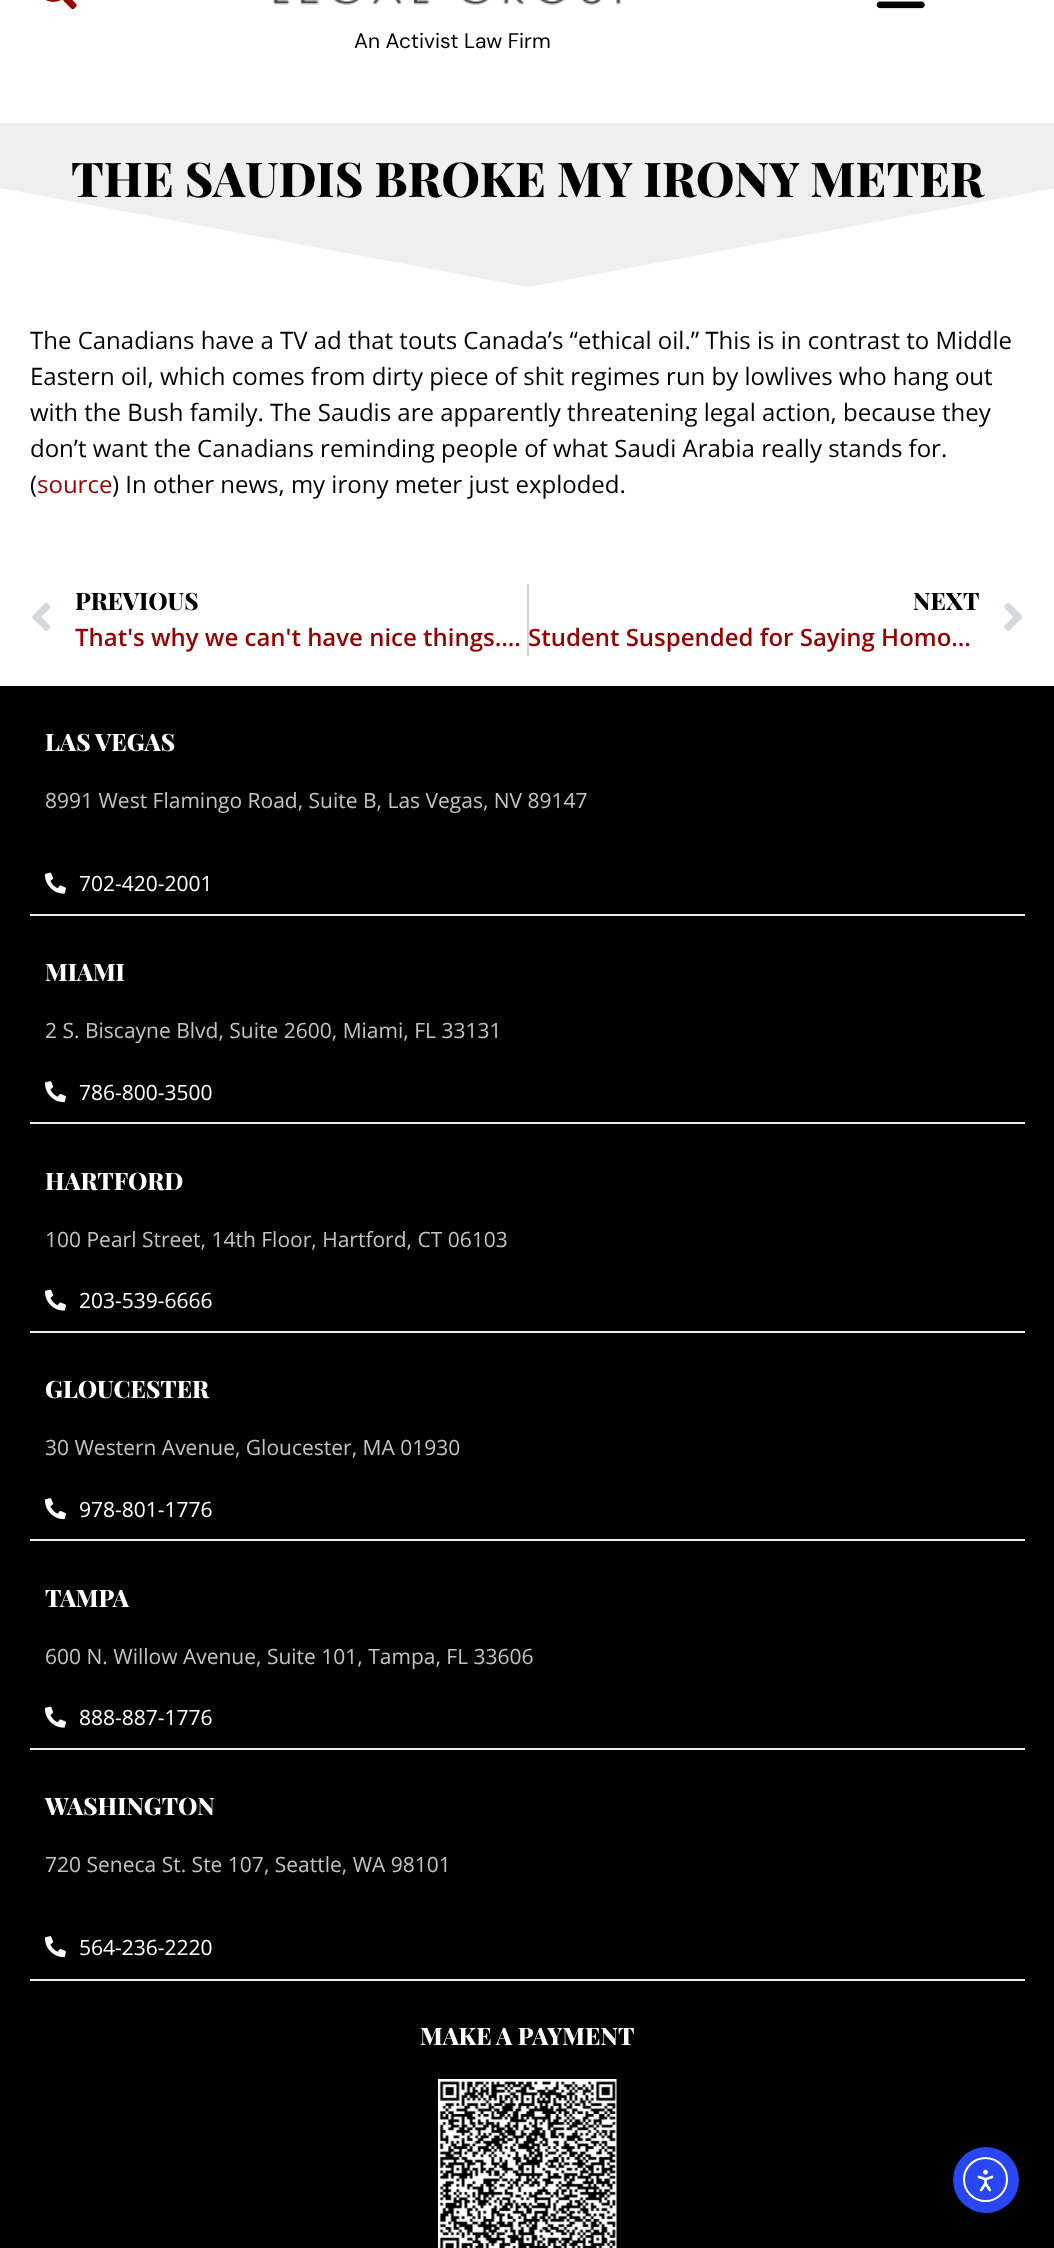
<?xml version="1.0" encoding="UTF-8"?>
<svg xmlns="http://www.w3.org/2000/svg" width="1054" height="2248">
    <rect width="100%" height="100%" fill="#FFFFFF"/>
    <image x="46" y="0" width="31" height="10" href="img_01.png"/>
    <image x="876" y="1" width="49" height="8" href="img_02.png"/>
    <image x="272" y="0" width="350" height="5" href="img_03.png"/>
    <text x="354" y="48" font-family="DM Sans" font-size="21" fill="#000000">An Activist Law Firm</text>
    <rect x="0" y="123" width="1054" height="164" fill="#EFEFEF"/>
    <text x="71" y="197" font-family="Playfair Display" font-size="48" font-weight="800" fill="#000000">THE SAUDIS BROKE MY IRONY METER</text>
    <path d="M 528 287 L 0 188 V 292 H 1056 V 188 Z" fill="#FFFFFF"/>
    <text font-family="Open Sans" font-size="24" fill="#000000">
        <tspan x="30" y="349">The Canadians have a TV ad that touts Canada’s “ethical oil.” This is in contrast to Middle</tspan>
        <tspan x="30" y="385">Eastern oil, which comes from dirty piece of shit regimes run by lowlives who hang out</tspan>
        <tspan x="30" y="421">with the Bush family. The Saudis are apparently threatening legal action, because they</tspan>
        <tspan x="30" y="457">don’t want the Canadians reminding people of what Saudi Arabia really stands for.</tspan>
        <tspan x="30" y="493">(</tspan>
    </text>
    <text x="37" y="493" font-family="Open Sans" font-size="24" fill="#9B0000">source</text>
    <text x="112" y="493" font-family="Open Sans" font-size="24" fill="#000000">) In other news, my irony meter just exploded.</text>
    <image x="32" y="602" width="19" height="29" href="img_04.png"/>
    <text x="75" y="610" font-family="Playfair Display" font-size="24" font-weight="800" fill="#000000">PREVIOUS</text>
    <text x="75" y="646" font-family="Open Sans" font-size="24" font-weight="600" fill="#9B0000">That's why we can't have nice things….</text>
    <rect x="527" y="584" width="2" height="72" fill="#D5D8DC"/>
    <text x="913" y="610" font-family="Playfair Display" font-size="24" font-weight="800" fill="#000000">NEXT</text>
    <text x="528" y="646" font-family="Open Sans" font-size="24" font-weight="600" fill="#9B0000">Student Suspended for Saying Homo…</text>
    <image x="1004" y="602" width="19" height="29" href="img_05.png"/>
    <rect x="0" y="686" width="1054" height="1562" fill="#000000"/>
    <rect x="30" y="914" width="995" height="2" fill="#EFEFEF"/>
    <text x="45" y="751" font-family="Playfair Display" font-size="24" font-weight="800" fill="#FFFFFF">LAS VEGAS</text>
    <text x="45" y="808" font-family="Open Sans" font-size="21" fill="#C3C3C3">8991 West Flamingo Road, Suite B, Las Vegas, NV 89147</text>
    <image x="45" y="872" width="21" height="22" href="img_06.png"/>
    <text x="79" y="891" font-family="Open Sans" font-size="21" fill="#FFFFFF">702-420-2001</text>
    <rect x="30" y="1122" width="995" height="2" fill="#EFEFEF"/>
    <text x="45" y="981" font-family="Playfair Display" font-size="24" font-weight="800" fill="#FFFFFF">MIAMI</text>
    <text x="45" y="1038" font-family="Open Sans" font-size="21" fill="#C3C3C3">2 S. Biscayne Blvd, Suite 2600, Miami, FL 33131</text>
    <image x="45" y="1081" width="21" height="22" href="img_07.png"/>
    <text x="79" y="1100" font-family="Open Sans" font-size="21" fill="#FFFFFF">786-800-3500</text>
    <rect x="30" y="1331" width="995" height="2" fill="#EFEFEF"/>
    <text x="45" y="1190" font-family="Playfair Display" font-size="24" font-weight="800" fill="#FFFFFF">HARTFORD</text>
    <text x="45" y="1247" font-family="Open Sans" font-size="21" fill="#C3C3C3">100 Pearl Street, 14th Floor, Hartford, CT 06103</text>
    <image x="45" y="1289" width="21" height="22" href="img_06.png"/>
    <text x="79" y="1308" font-family="Open Sans" font-size="21" fill="#FFFFFF">203-539-6666</text>
    <rect x="30" y="1539" width="995" height="2" fill="#EFEFEF"/>
    <text x="45" y="1398" font-family="Playfair Display" font-size="24" font-weight="800" fill="#FFFFFF">GLOUCESTER</text>
    <text x="45" y="1455" font-family="Open Sans" font-size="21" fill="#C3C3C3">30 Western Avenue, Gloucester, MA 01930</text>
    <image x="45" y="1498" width="21" height="22" href="img_07.png"/>
    <text x="79" y="1517" font-family="Open Sans" font-size="21" fill="#FFFFFF">978-801-1776</text>
    <rect x="30" y="1748" width="995" height="2" fill="#EFEFEF"/>
    <text x="45" y="1607" font-family="Playfair Display" font-size="24" font-weight="800" fill="#FFFFFF">TAMPA</text>
    <text x="45" y="1664" font-family="Open Sans" font-size="21" fill="#C3C3C3">600 N. Willow Avenue, Suite 101, Tampa, FL 33606</text>
    <image x="45" y="1706" width="21" height="22" href="img_06.png"/>
    <text x="79" y="1725" font-family="Open Sans" font-size="21" fill="#FFFFFF">888-887-1776</text>
    <rect x="30" y="1979" width="995" height="2" fill="#EFEFEF"/>
    <text x="45" y="1815" font-family="Playfair Display" font-size="24" font-weight="800" fill="#FFFFFF">WASHINGTON</text>
    <text x="45" y="1872" font-family="Open Sans" font-size="21" fill="#C3C3C3">720 Seneca St. Ste 107, Seattle, WA 98101</text>
    <image x="45" y="1936" width="21" height="22" href="img_07.png"/>
    <text x="79" y="1955" font-family="Open Sans" font-size="21" fill="#FFFFFF">564-236-2220</text>
    <text x="420" y="2045" font-family="Playfair Display" font-size="24" font-weight="800" fill="#FFFFFF">MAKE A PAYMENT</text>
    <image x="438" y="2079" width="179" height="169" href="img_08.png"/>
    <circle cx="986" cy="2180" r="33" fill="#2847F3"/>
    <circle cx="985.5" cy="2179.5" r="21.5" fill="none" stroke="#FFFFFF" stroke-width="2"/>
    <image x="977" y="2169" width="17" height="23" href="img_09.png"/>
</svg>
